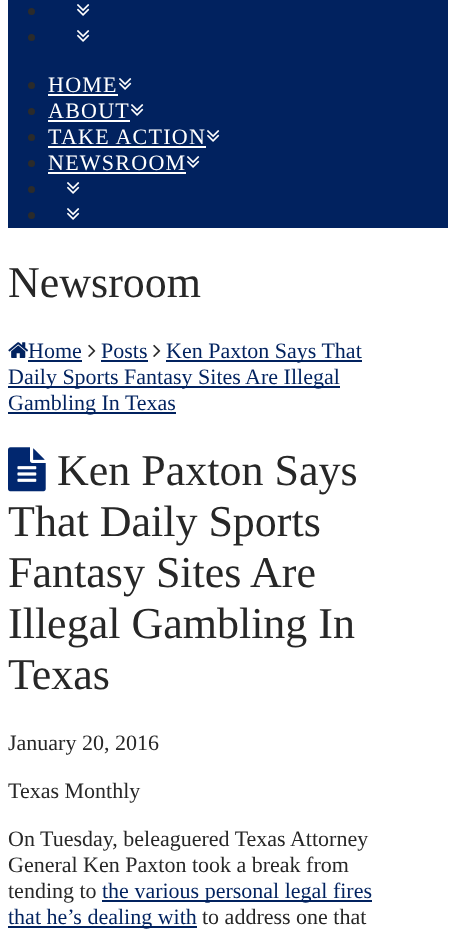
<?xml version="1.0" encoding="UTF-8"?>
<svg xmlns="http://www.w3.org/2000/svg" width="456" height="936">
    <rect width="100%" height="100%" fill="#FFFFFF"/>
    <rect x="8" y="0" width="440" height="228" fill="#01225F"/>
    <circle cx="31.5" cy="11.5" r="3.5" fill="#2B2B2B"/>
    <image x="77" y="4" width="13" height="12" href="img_01.png"/>
    <circle cx="31.5" cy="37.5" r="3.5" fill="#2B2B2B"/>
    <image x="77" y="30" width="13" height="12" href="img_01.png"/>
    <circle cx="31.5" cy="85.5" r="3.5" fill="#2B2B2B"/>
    <text x="48" y="92" font-family="Liberation Serif" font-size="22" letter-spacing="1.25" fill="#FFFFFF">HOME</text>
    <rect x="48" y="94" width="70" height="2" fill="#FFFFFF"/>
    <image x="119" y="78" width="13" height="12" href="img_01.png"/>
    <circle cx="31.5" cy="111.5" r="3.5" fill="#2B2B2B"/>
    <text x="48" y="118" font-family="Liberation Serif" font-size="22" letter-spacing="1.25" fill="#FFFFFF">ABOUT</text>
    <rect x="48" y="120" width="82" height="2" fill="#FFFFFF"/>
    <image x="131" y="104" width="13" height="12" href="img_01.png"/>
    <circle cx="31.5" cy="137.5" r="3.5" fill="#2B2B2B"/>
    <text x="48" y="144" font-family="Liberation Serif" font-size="22" letter-spacing="1.25" fill="#FFFFFF">TAKE ACTION</text>
    <rect x="48" y="146" width="158" height="2" fill="#FFFFFF"/>
    <image x="207" y="130" width="13" height="12" href="img_01.png"/>
    <circle cx="31.5" cy="163.5" r="3.5" fill="#2B2B2B"/>
    <text x="48" y="170" font-family="Liberation Serif" font-size="22" letter-spacing="1.25" fill="#FFFFFF">NEWSROOM</text>
    <rect x="48" y="172" width="138" height="2" fill="#FFFFFF"/>
    <image x="187" y="156" width="13" height="12" href="img_01.png"/>
    <circle cx="31.5" cy="189.5" r="3.5" fill="#2B2B2B"/>
    <image x="67" y="182" width="13" height="12" href="img_01.png"/>
    <circle cx="31.5" cy="215.5" r="3.5" fill="#2B2B2B"/>
    <image x="67" y="208" width="13" height="12" href="img_01.png"/>
    <text x="8" y="297" font-family="Liberation Serif" font-size="44" fill="#272727">Newsroom</text>
    <image x="8" y="342" width="21" height="16" href="img_02.png"/>
    <text x="28" y="358" font-family="Liberation Serif" font-size="22" fill="#01225F">Home</text>
    <rect x="28" y="360" width="54" height="2" fill="#01225F"/>
    <image x="88" y="344" width="8" height="13" href="img_03.png"/>
    <text x="101" y="358" font-family="Liberation Serif" font-size="22" fill="#01225F">Posts</text>
    <rect x="101" y="360" width="47" height="2" fill="#01225F"/>
    <image x="153" y="344" width="8" height="13" href="img_03.png"/>
    <rect x="166" y="360" width="196" height="2" fill="#01225F"/>
    <text x="166" y="358" font-family="Liberation Serif" font-size="22" fill="#01225F">Ken Paxton Says That</text>
    <rect x="8" y="386" width="332" height="2" fill="#01225F"/>
    <text x="8" y="384" font-family="Liberation Serif" font-size="22" fill="#01225F">Daily Sports Fantasy Sites Are Illegal</text>
    <rect x="8" y="412" width="168" height="2" fill="#01225F"/>
    <text x="8" y="410" font-family="Liberation Serif" font-size="22" fill="#01225F">Gambling In Texas</text>
    <image x="8" y="447" width="38" height="45" href="img_04.png"/>
    <text x="57" y="485" font-family="Liberation Serif" font-size="44" fill="#272727">Ken Paxton Says</text>
    <text font-family="Liberation Serif" font-size="44" fill="#272727">
        <tspan x="8" y="536">That Daily Sports</tspan>
        <tspan x="8" y="587">Fantasy Sites Are</tspan>
        <tspan x="8" y="638">Illegal Gambling In</tspan>
        <tspan x="8" y="689">Texas</tspan>
    </text>
    <text x="8" y="750" font-family="Liberation Serif" font-size="22" fill="#272727">January 20, 2016</text>
    <text x="8" y="798" font-family="Liberation Serif" font-size="22" fill="#272727">Texas Monthly</text>
    <text font-family="Liberation Serif" font-size="22" fill="#272727">
        <tspan x="8" y="846">On Tuesday, beleaguered Texas Attorney</tspan>
        <tspan x="8" y="872">General Ken Paxton took a break from</tspan>
        <tspan x="8" y="898">tending to</tspan>
    </text>
    <rect x="102" y="900" width="270" height="2" fill="#01225F"/>
    <text x="102" y="898" font-family="Liberation Serif" font-size="22" fill="#01225F">the various personal legal fires</text>
    <rect x="8" y="926" width="189" height="2" fill="#01225F"/>
    <text x="8" y="924" font-family="Liberation Serif" font-size="22" fill="#01225F">that he’s dealing with</text>
    <text x="202" y="924" font-family="Liberation Serif" font-size="22" fill="#272727">to address one that</text>
</svg>
